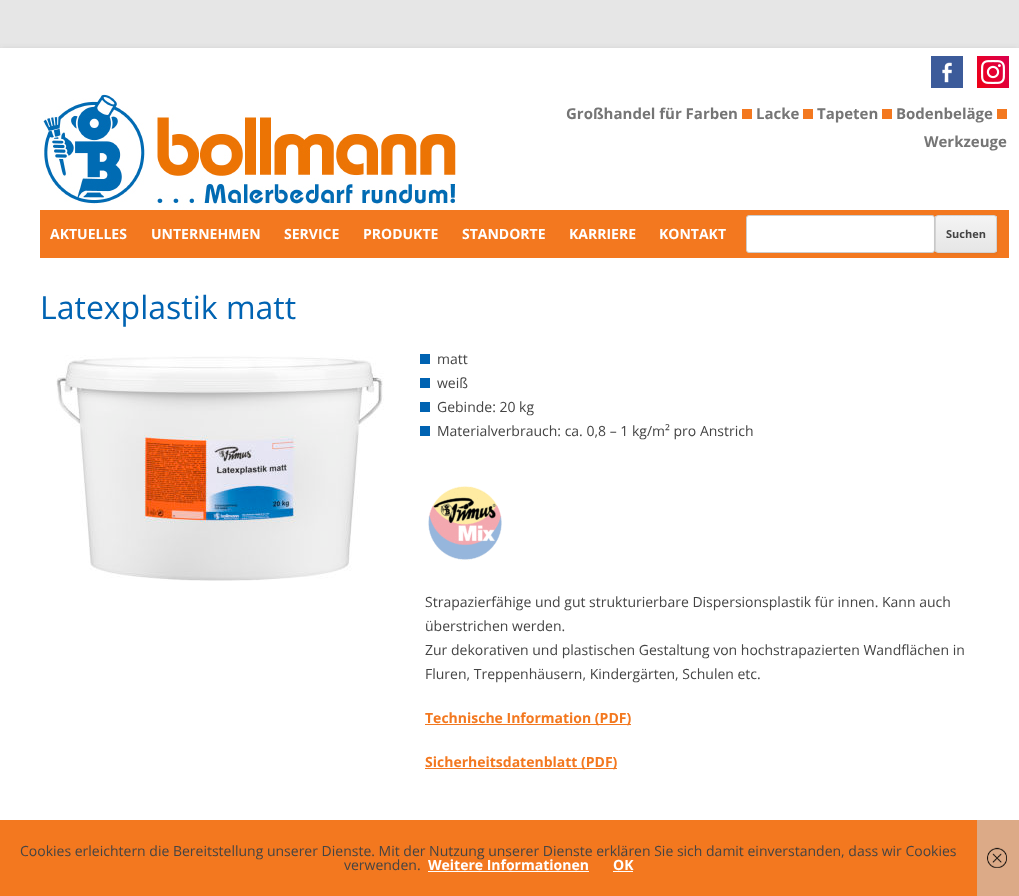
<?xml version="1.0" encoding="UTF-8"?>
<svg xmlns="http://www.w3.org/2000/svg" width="1019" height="896">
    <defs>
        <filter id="blur1" x="-50%" y="-200%" width="200%" height="500%"><feGaussianBlur stdDeviation="3"/></filter>
        <filter id="blur2" x="-50%" y="-200%" width="200%" height="500%"><feGaussianBlur stdDeviation="1"/></filter>
        <clipPath id="clip1"><rect x="935" y="215" width="62" height="38" rx="3"/></clipPath>
        <linearGradient id="g1" gradientUnits="userSpaceOnUse" x1="966" y1="216" x2="966" y2="252"><stop offset="0" stop-color="#F4F4F4"/><stop offset="1" stop-color="#E6E6E6"/></linearGradient>
    </defs>
    <rect width="100%" height="100%" fill="#E6E6E6"/>
    <rect x="0" y="50" width="1019" height="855" fill="#646464" fill-opacity="0.3" filter="url(#blur1)"/>
    <rect x="0" y="48" width="1019" height="772" fill="#FFFFFF"/>
    <image x="931" y="56" width="32" height="32" href="img_01.png"/>
    <image x="977" y="56" width="32" height="32" href="img_02.png"/>
    <image x="43" y="91" width="413" height="119" href="img_03.png"/>
    <text x="566" y="119" font-family="Open Sans" font-size="15" font-weight="700" fill="#757575">Großhandel für Farben</text>
    <rect x="742" y="109" width="10" height="10" fill="#F3781F"/>
    <text x="756" y="119" font-family="Open Sans" font-size="15" font-weight="700" fill="#757575">Lacke</text>
    <rect x="803" y="109" width="10" height="10" fill="#F3781F"/>
    <text x="817" y="119" font-family="Open Sans" font-size="15" font-weight="700" fill="#757575">Tapeten</text>
    <rect x="882" y="109" width="10" height="10" fill="#F3781F"/>
    <text x="896" y="119" font-family="Open Sans" font-size="15" font-weight="700" fill="#757575">Bodenbeläge</text>
    <rect x="997" y="109" width="10" height="10" fill="#F3781F"/>
    <text x="924" y="147" font-family="Open Sans" font-size="15" font-weight="700" fill="#757575">Werkzeuge</text>
    <rect x="40" y="210" width="969" height="48" fill="#F3781F"/>
    <text x="50" y="239" font-family="Open Sans" font-size="14" font-weight="700" fill="#FFFFFF">AKTUELLES</text>
    <text x="151" y="239" font-family="Open Sans" font-size="14" font-weight="700" fill="#FFFFFF">UNTERNEHMEN</text>
    <text x="284" y="239" font-family="Open Sans" font-size="14" font-weight="700" fill="#FFFFFF">SERVICE</text>
    <text x="363" y="239" font-family="Open Sans" font-size="14" font-weight="700" fill="#FFFFFF">PRODUKTE</text>
    <text x="462" y="239" font-family="Open Sans" font-size="14" font-weight="700" fill="#FFFFFF">STANDORTE</text>
    <text x="569" y="239" font-family="Open Sans" font-size="14" font-weight="700" fill="#FFFFFF">KARRIERE</text>
    <text x="659" y="239" font-family="Open Sans" font-size="14" font-weight="700" fill="#FFFFFF">KONTAKT</text>
    <rect x="746.5" y="215.5" width="188" height="37" rx="2.5" fill="#FFFFFF" stroke="#CCCCCC"/>
    <rect x="935" y="216" width="62" height="38" rx="3" fill="#404040" fill-opacity="0.1" filter="url(#blur2)"/>
    <g clip-path="url(#clip1)">
        <rect x="935" y="216" width="62" height="36" fill="url(#g1)"/>
    </g>
    <rect x="935.5" y="215.5" width="61" height="37" rx="2.5" fill="none" stroke="#D2D2D2"/>
    <text x="946" y="238" font-family="Open Sans" font-size="11" font-weight="700" fill="#444444">Suchen</text>
    <text x="40" y="319" font-family="Open Sans" font-size="32" fill="#0063B2">Latexplastik matt</text>
    <image x="56" y="355" width="328" height="226" href="img_04.png"/>
    <rect x="420" y="354" width="10" height="10" fill="#0063B2"/>
    <text x="437" y="364" font-family="Open Sans" font-size="14" fill="#444444">matt</text>
    <rect x="420" y="378" width="10" height="10" fill="#0063B2"/>
    <text x="437" y="388" font-family="Open Sans" font-size="14" fill="#444444">weiß</text>
    <rect x="420" y="402" width="10" height="10" fill="#0063B2"/>
    <text x="437" y="412" font-family="Open Sans" font-size="14" fill="#444444">Gebinde: 20 kg</text>
    <rect x="420" y="426" width="10" height="10" fill="#0063B2"/>
    <text x="437" y="436" font-family="Open Sans" font-size="14" fill="#444444">Materialverbrauch: ca. 0,8 – 1 kg/m² pro Anstrich</text>
    <image x="428" y="486" width="74" height="75" href="img_05.png"/>
    <text font-family="Open Sans" font-size="14" fill="#444444">
        <tspan x="425" y="607">Strapazierfähige und gut strukturierbare Dispersionsplastik für innen. Kann auch</tspan>
        <tspan x="425" y="631">überstrichen werden.</tspan>
        <tspan x="425" y="655">Zur dekorativen und plastischen Gestaltung von hochstrapazierten Wandflächen in</tspan>
        <tspan x="425" y="679">Fluren, Treppenhäusern, Kindergärten, Schulen etc.</tspan>
    </text>
    <rect x="425" y="724" width="206" height="1" fill="#F3781F"/>
    <text x="425" y="723" font-family="Open Sans" font-size="14" font-weight="700" fill="#F3781F">Technische Information (PDF)</text>
    <rect x="425" y="768" width="192" height="1" fill="#F3781F"/>
    <text x="425" y="767" font-family="Open Sans" font-size="14" font-weight="700" fill="#F3781F">Sicherheitsdatenblatt (PDF)</text>
    <rect x="0" y="820" width="977" height="76" fill="#F3781F"/>
    <text x="20" y="856" font-family="Open Sans" font-size="14" fill="#444444">Cookies erleichtern die Bereitstellung unserer Dienste. Mit der Nutzung unserer Dienste erklären Sie sich damit einverstanden, dass wir Cookies</text>
    <text x="344" y="870" font-family="Open Sans" font-size="14" fill="#444444">verwenden.</text>
    <text x="428" y="870" font-family="Open Sans" font-size="14" font-weight="700" fill="#FFFFFF">Weitere Informationen</text>
    <rect x="428" y="871" width="161" height="1" fill="#FFFFFF"/>
    <text x="613" y="870" font-family="Open Sans" font-size="14" font-weight="700" fill="#FFFFFF">OK</text>
    <rect x="613" y="871" width="20" height="1" fill="#FFFFFF"/>
    <rect x="977" y="820" width="42" height="76" fill="#DCAA87"/>
    <image x="987" y="847" width="20" height="21" href="img_06.png"/>
</svg>
